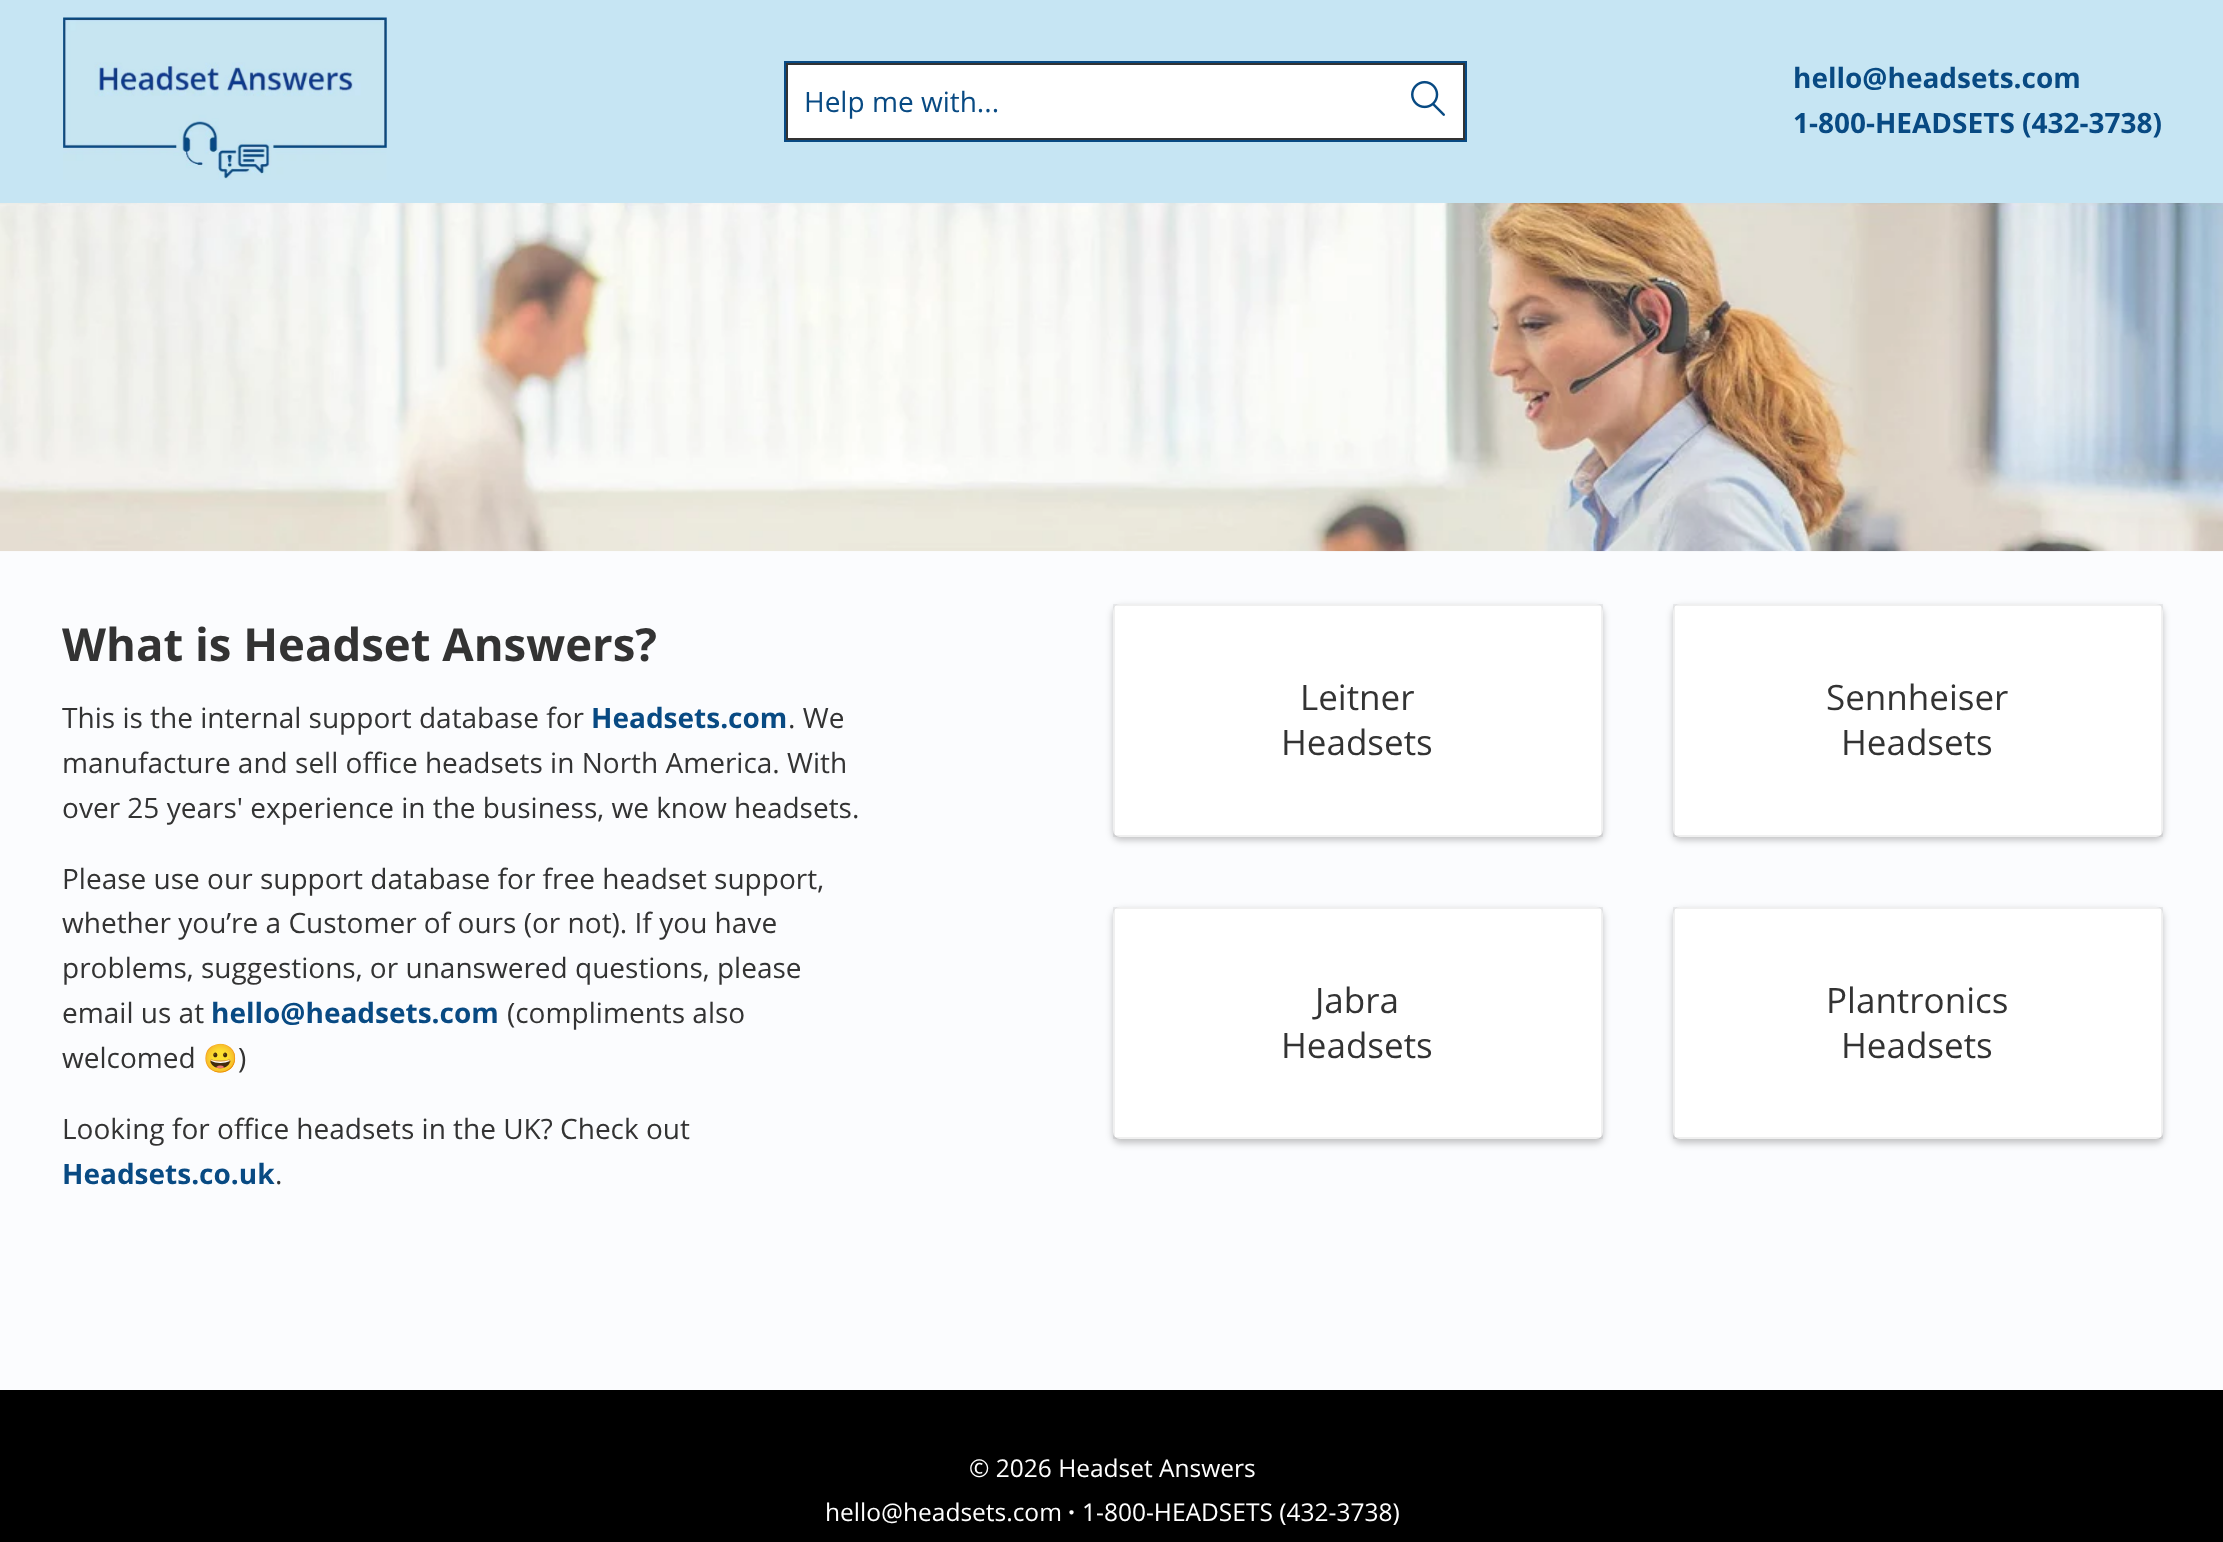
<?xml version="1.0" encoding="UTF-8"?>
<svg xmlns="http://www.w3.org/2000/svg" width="2223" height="1542">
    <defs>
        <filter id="blur1" x="-50%" y="-200%" width="200%" height="500%"><feGaussianBlur stdDeviation="3.5"/></filter>
    </defs>
    <rect width="100%" height="100%" fill="#FBFCFE"/>
    <rect x="0" y="0" width="2223" height="203" fill="#C6E5F3"/>
    <image x="63" y="17" width="324" height="163" href="img_01.png"/>
    <rect x="788" y="65" width="675" height="73" fill="#FFFFFF"/>
    <rect x="785" y="62" width="681" height="79" fill="none" stroke="#084A83" stroke-width="2"/>
    <rect x="787" y="64" width="677" height="75" fill="none" stroke="#333333" stroke-width="2"/>
    <text x="804" y="112" font-family="Open Sans" font-size="28" fill="#084A83">Help me with...</text>
    <image x="1411" y="80" width="34" height="36" href="img_02.png"/>
    <text font-family="Open Sans" font-size="28" font-weight="700" fill="#084A83">
        <tspan x="1793" y="88">hello@headsets.com</tspan>
        <tspan x="1793" y="133">1-800-HEADSETS (432-3738)</tspan>
    </text>
    <image x="0" y="203" width="2223" height="349" href="img_03.png"/>
    <text x="62" y="661" font-family="Open Sans" font-size="45.5" font-weight="700" fill="#333333">What is Headset Answers?</text>
    <text x="62" y="728" font-family="Open Sans" font-size="28" fill="#333333">This is the internal support database for</text>
    <text x="591" y="728" font-family="Open Sans" font-size="28" font-weight="700" fill="#084A83">Headsets.com</text>
    <text x="788" y="728" font-family="Open Sans" font-size="28" fill="#333333">. We</text>
    <text font-family="Open Sans" font-size="28" fill="#333333">
        <tspan x="62" y="773">manufacture and sell office headsets in North America. With</tspan>
        <tspan x="62" y="818">over 25 years' experience in the business, we know headsets.</tspan>
    </text>
    <text font-family="Open Sans" font-size="28" fill="#333333">
        <tspan x="62" y="889">Please use our support database for free headset support,</tspan>
        <tspan x="62" y="933">whether you’re a Customer of ours (or not). If you have</tspan>
        <tspan x="62" y="978">problems, suggestions, or unanswered questions, please</tspan>
        <tspan x="62" y="1023">email us at</tspan>
    </text>
    <text x="211" y="1023" font-family="Open Sans" font-size="28" font-weight="700" fill="#084A83">hello@headsets.com</text>
    <text x="507" y="1023" font-family="Open Sans" font-size="28" fill="#333333">(compliments also</text>
    <text x="62" y="1068" font-family="Open Sans" font-size="28" fill="#333333">welcomed</text>
    <text x="203" y="1068" font-family="Noto Color Emoji" font-size="28" fill="#333333">😀</text>
    <text x="238" y="1068" font-family="Open Sans" font-size="28" fill="#333333">)</text>
    <text x="62" y="1139" font-family="Open Sans" font-size="28" fill="#333333">Looking for office headsets in the UK? Check out</text>
    <text x="62" y="1184" font-family="Open Sans" font-size="28" font-weight="700" fill="#084A83">Headsets.co.uk</text>
    <text x="275" y="1184" font-family="Open Sans" font-size="28" fill="#333333">.</text>
    <rect x="1113" y="607" width="490" height="233" rx="7" fill="#000000" fill-opacity="0.24" filter="url(#blur1)"/>
    <rect x="1113" y="604" width="490" height="233" rx="7" fill="#FFFFFF"/>
    <rect x="1114" y="605" width="488" height="231" fill="none" stroke="#000000" stroke-opacity="0.06" stroke-width="2"/>
    <text x="1300" y="710" font-family="Open Sans" font-size="35" fill="#333333">Leitner</text>
    <text x="1281" y="755" font-family="Open Sans" font-size="35" fill="#333333">Headsets</text>
    <rect x="1673" y="607" width="490" height="233" rx="7" fill="#000000" fill-opacity="0.24" filter="url(#blur1)"/>
    <rect x="1673" y="604" width="490" height="233" rx="7" fill="#FFFFFF"/>
    <rect x="1674" y="605" width="488" height="231" fill="none" stroke="#000000" stroke-opacity="0.06" stroke-width="2"/>
    <text x="1826" y="710" font-family="Open Sans" font-size="35" fill="#333333">Sennheiser</text>
    <text x="1841" y="755" font-family="Open Sans" font-size="35" fill="#333333">Headsets</text>
    <rect x="1113" y="910" width="490" height="233" rx="7" fill="#000000" fill-opacity="0.24" filter="url(#blur1)"/>
    <rect x="1113" y="907" width="490" height="232" rx="7" fill="#FFFFFF"/>
    <rect x="1114" y="908" width="488" height="230" fill="none" stroke="#000000" stroke-opacity="0.06" stroke-width="2"/>
    <text x="1315" y="1013" font-family="Open Sans" font-size="35" fill="#333333">Jabra</text>
    <text x="1281" y="1058" font-family="Open Sans" font-size="35" fill="#333333">Headsets</text>
    <rect x="1673" y="910" width="490" height="233" rx="7" fill="#000000" fill-opacity="0.24" filter="url(#blur1)"/>
    <rect x="1673" y="907" width="490" height="232" rx="7" fill="#FFFFFF"/>
    <rect x="1674" y="908" width="488" height="230" fill="none" stroke="#000000" stroke-opacity="0.06" stroke-width="2"/>
    <text x="1826" y="1013" font-family="Open Sans" font-size="35" fill="#333333">Plantronics</text>
    <text x="1841" y="1058" font-family="Open Sans" font-size="35" fill="#333333">Headsets</text>
    <rect x="0" y="1390" width="2223" height="152" fill="#000000"/>
    <text x="969" y="1477" font-family="Open Sans" font-size="24.5" fill="#FFFFFF">© 2026 Headset Answers</text>
    <text x="825" y="1521" font-family="Open Sans" font-size="24.5" fill="#FFFFFF">hello@headsets.com</text>
    <text x="1068" y="1521" font-family="Open Sans" font-size="24.5" font-weight="700" fill="#FFFFFF">·</text>
    <text x="1082" y="1521" font-family="Open Sans" font-size="24.5" fill="#FFFFFF">1-800-HEADSETS (432-3738)</text>
</svg>
